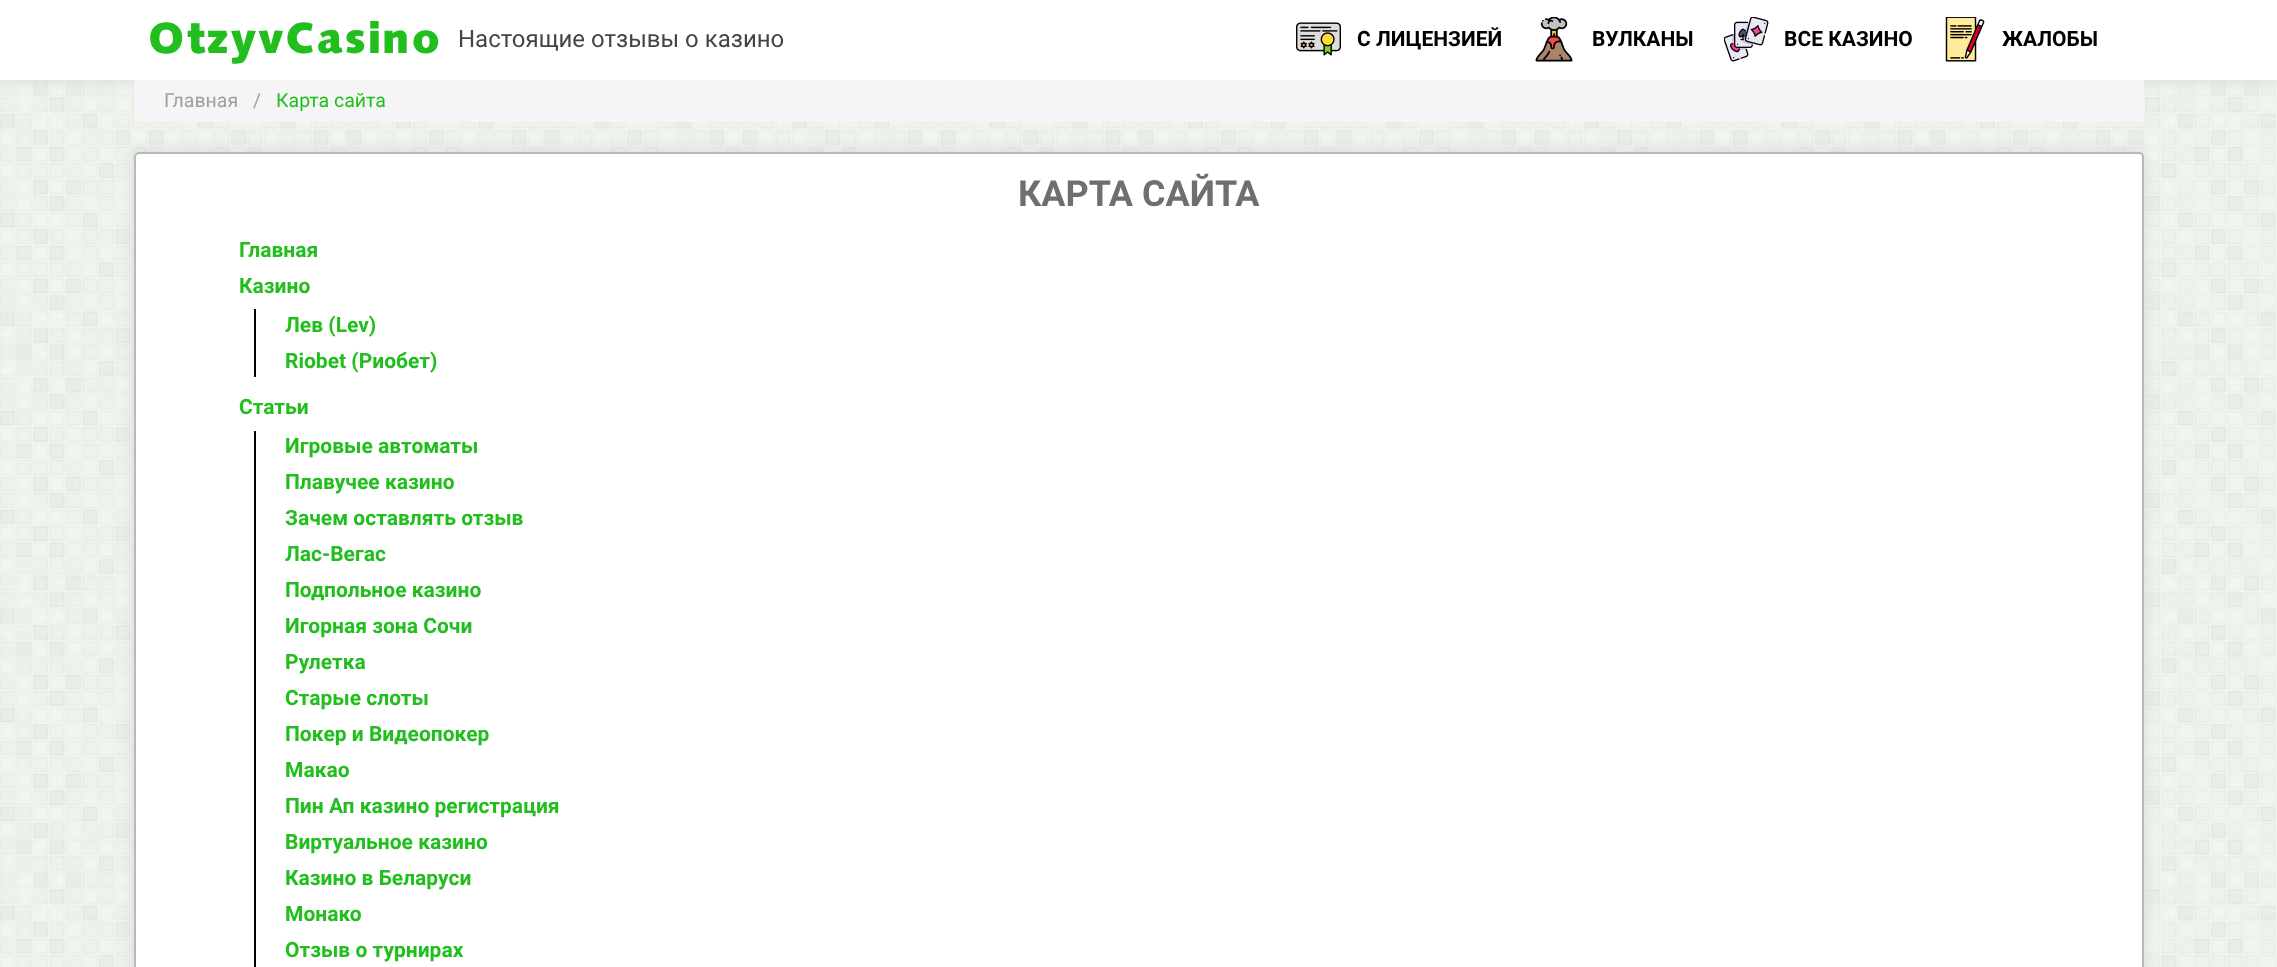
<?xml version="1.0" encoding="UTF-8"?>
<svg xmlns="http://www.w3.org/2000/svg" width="2277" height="967">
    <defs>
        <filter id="blur1" x="-50%" y="-200%" width="200%" height="500%"><feGaussianBlur stdDeviation="7.5"/></filter>
    </defs>
    <rect width="100%" height="100%" fill="#F3F9F0"/>
    <image x="0" y="80" width="2277" height="887" href="img_01.png"/>
    <rect x="0" y="-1" width="2277" height="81" fill="#DAD9D9" filter="url(#blur1)"/>
    <rect x="0" y="0" width="2277" height="80" fill="#FFFFFF"/>
    <text x="149" y="53" font-family="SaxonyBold" font-size="45" font-weight="700" letter-spacing="1.5" fill="#21BE1E">OtzyvCasino</text>
    <text x="458" y="47" font-family="Roboto" font-size="24" fill="#444444">Настоящие отзывы о казино</text>
    <image x="1296" y="22" width="45" height="34" href="img_02.png"/>
    <text x="1357" y="46" font-family="Roboto" font-size="21" font-weight="700" fill="#000000">С ЛИЦЕНЗИЕЙ</text>
    <image x="1535" y="17" width="38" height="45" href="img_03.png"/>
    <text x="1592" y="46" font-family="Roboto" font-size="21" font-weight="700" fill="#000000">ВУЛКАНЫ</text>
    <image x="1724" y="17" width="45" height="45" href="img_04.png"/>
    <text x="1784" y="46" font-family="Roboto" font-size="21" font-weight="700" fill="#000000">ВСЕ КАЗИНО</text>
    <image x="1945" y="17" width="40" height="45" href="img_05.png"/>
    <text x="2002" y="46" font-family="Roboto" font-size="21" font-weight="700" fill="#000000">ЖАЛОБЫ</text>
    <rect x="134" y="80" width="2010" height="42" fill="#F5F5F5"/>
    <text x="164" y="107" font-family="Roboto" font-size="19.5" fill="#9F9F9F">Главная</text>
    <text x="253" y="107" font-family="Roboto" font-size="19.5" fill="#9F9F9F">/</text>
    <text x="276" y="107" font-family="Roboto" font-size="19.5" fill="#21BE1E">Карта сайта</text>
    <rect x="134" y="152" width="2010" height="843" rx="5" fill="#DAD9D9" filter="url(#blur1)"/>
    <rect x="135" y="153" width="2008" height="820" rx="4" fill="#FFFFFF" stroke="#B6BABD" stroke-width="2"/>
    <text x="1018" y="206" font-family="Roboto" font-size="36" font-weight="700" fill="#6F6F6F">КАРТА САЙТА</text>
    <text font-family="Roboto" font-size="21" font-weight="700" fill="#21BE1E">
        <tspan x="239" y="257">Главная</tspan>
        <tspan x="239" y="293">Казино</tspan>
    </text>
    <rect x="254" y="309" width="2" height="68" fill="#000000"/>
    <text font-family="Roboto" font-size="21" font-weight="700" fill="#21BE1E">
        <tspan x="285" y="332">Лев (Lev)</tspan>
        <tspan x="285" y="368">Riobet (Риобет)</tspan>
    </text>
    <text x="239" y="414" font-family="Roboto" font-size="21" font-weight="700" fill="#21BE1E">Статьи</text>
    <rect x="254" y="431" width="2" height="536" fill="#000000"/>
    <text font-family="Roboto" font-size="21" font-weight="700" fill="#21BE1E">
        <tspan x="285" y="453">Игровые автоматы</tspan>
        <tspan x="285" y="489">Плавучее казино</tspan>
        <tspan x="285" y="525">Зачем оставлять отзыв</tspan>
        <tspan x="285" y="561">Лас-Вегас</tspan>
        <tspan x="285" y="597">Подпольное казино</tspan>
        <tspan x="285" y="633">Игорная зона Сочи</tspan>
        <tspan x="285" y="669">Рулетка</tspan>
        <tspan x="285" y="705">Старые слоты</tspan>
        <tspan x="285" y="741">Покер и Видеопокер</tspan>
        <tspan x="285" y="777">Макао</tspan>
        <tspan x="285" y="813">Пин Ап казино регистрация</tspan>
        <tspan x="285" y="849">Виртуальное казино</tspan>
        <tspan x="285" y="885">Казино в Беларуси</tspan>
        <tspan x="285" y="921">Монако</tspan>
        <tspan x="285" y="957">Отзыв о турнирах</tspan>
    </text>
</svg>
